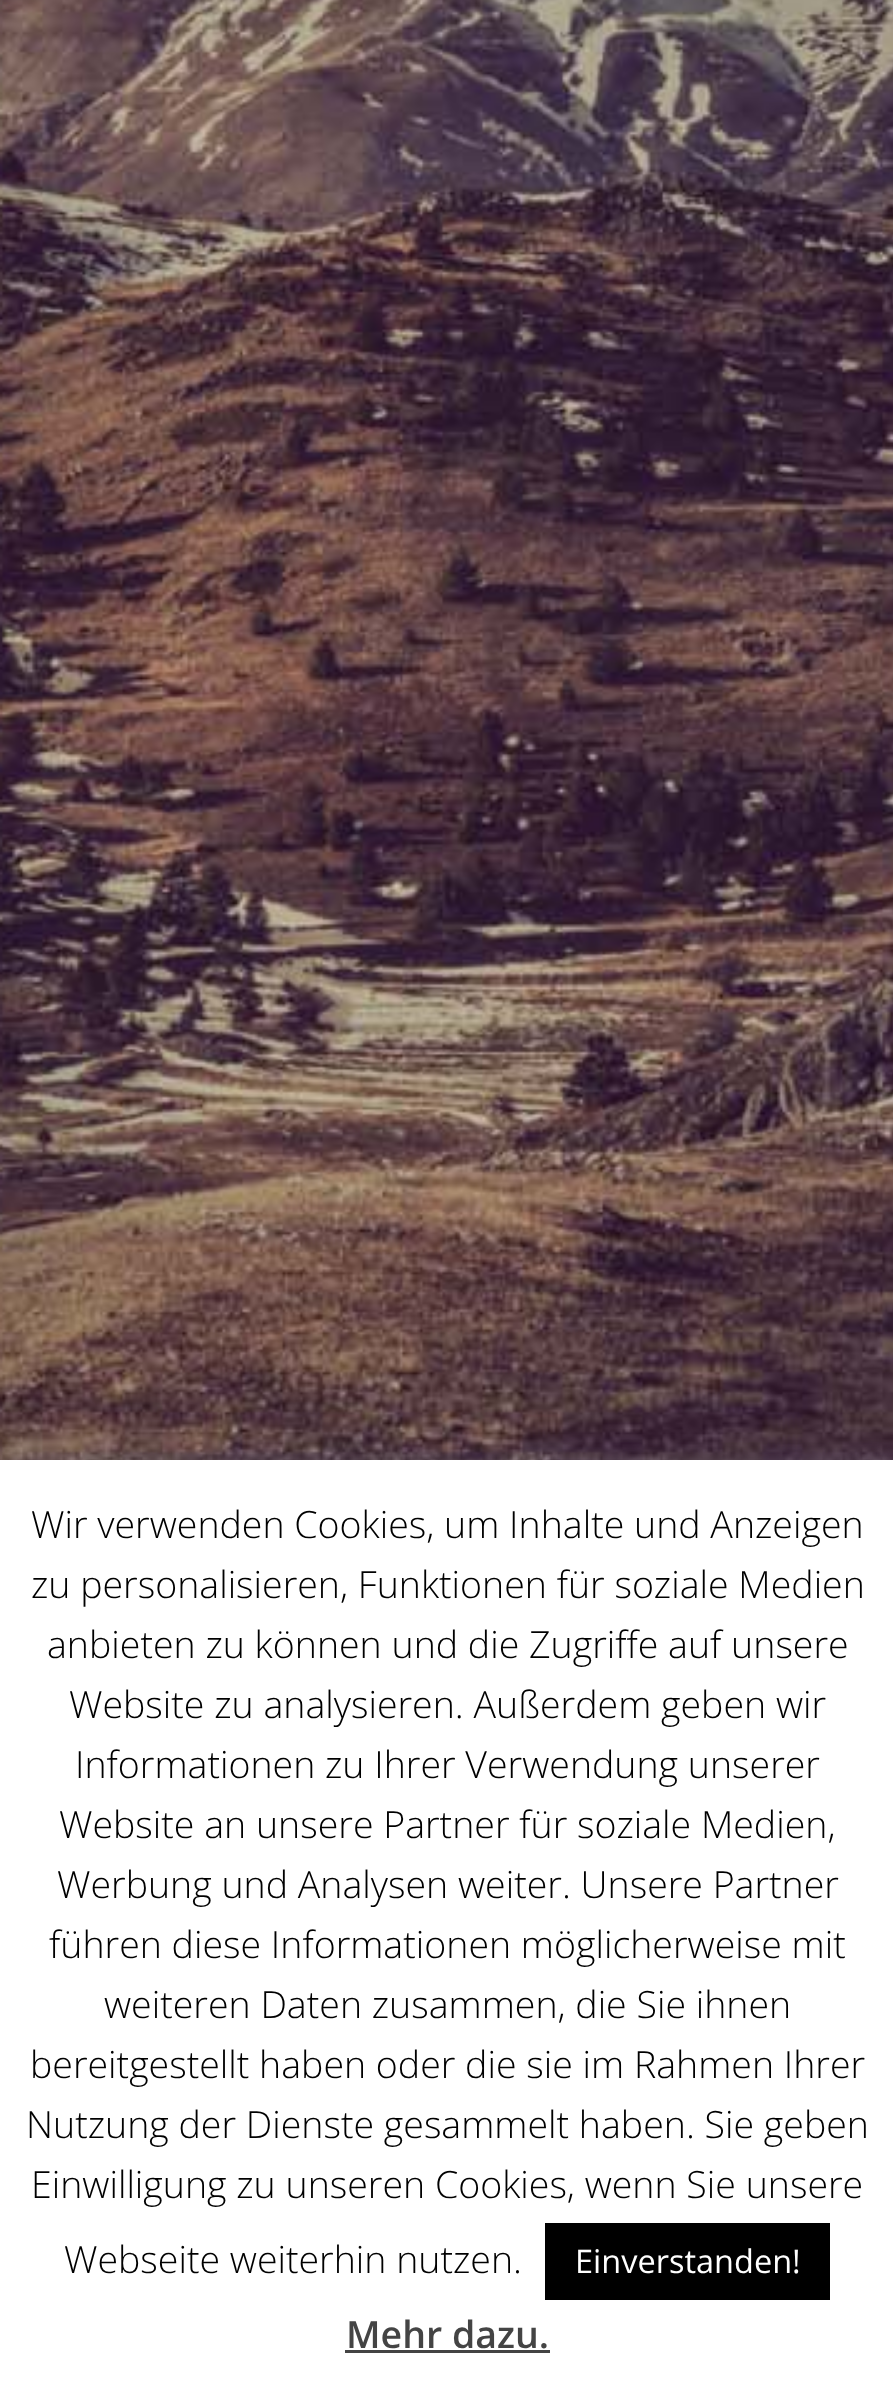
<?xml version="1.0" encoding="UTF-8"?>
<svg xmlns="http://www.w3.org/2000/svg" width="893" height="2390">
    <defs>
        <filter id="blur1" x="-50%" y="-200%" width="200%" height="500%"><feGaussianBlur stdDeviation="12.5"/></filter>
    </defs>
    <rect width="100%" height="100%" fill="#FFFFFF"/>
    <image x="0" y="0" width="893" height="1460" href="img_01.png"/>
    <rect x="0" y="1458" width="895" height="930" fill="#ACABAB" fill-opacity="0.3" filter="url(#blur1)"/>
    <rect x="0" y="1460" width="893" height="930" fill="#FFFFFF"/>
    <text font-family="Open Sans" font-size="37.5" font-weight="300" fill="#000000">
        <tspan x="31" y="1538">Wir verwenden Cookies, um Inhalte und Anzeigen</tspan>
        <tspan x="31" y="1598">zu personalisieren, Funktionen für soziale Medien</tspan>
    </text>
    <text x="47" y="1658" font-family="Open Sans" font-size="37.5" font-weight="300" fill="#000000">anbieten zu können und die Zugriffe auf unsere</text>
    <text x="69" y="1718" font-family="Open Sans" font-size="37.5" font-weight="300" fill="#000000">Website zu analysieren. Außerdem geben wir</text>
    <text x="75" y="1778" font-family="Open Sans" font-size="37.5" font-weight="300" fill="#000000">Informationen zu Ihrer Verwendung unserer</text>
    <text x="59" y="1838" font-family="Open Sans" font-size="37.5" font-weight="300" fill="#000000">Website an unsere Partner für soziale Medien,</text>
    <text x="57" y="1898" font-family="Open Sans" font-size="37.5" font-weight="300" fill="#000000">Werbung und Analysen weiter. Unsere Partner</text>
    <text x="49" y="1958" font-family="Open Sans" font-size="37.5" font-weight="300" fill="#000000">führen diese Informationen möglicherweise mit</text>
    <text x="104" y="2018" font-family="Open Sans" font-size="37.5" font-weight="300" fill="#000000">weiteren Daten zusammen, die Sie ihnen</text>
    <text x="30" y="2078" font-family="Open Sans" font-size="37.5" font-weight="300" fill="#000000">bereitgestellt haben oder die sie im Rahmen Ihrer</text>
    <text x="26" y="2138" font-family="Open Sans" font-size="37.5" font-weight="300" fill="#000000">Nutzung der Dienste gesammelt haben. Sie geben</text>
    <text x="31" y="2198" font-family="Open Sans" font-size="37.5" font-weight="300" fill="#000000">Einwilligung zu unseren Cookies, wenn Sie unsere</text>
    <text x="64" y="2273" font-family="Open Sans" font-size="37.5" font-weight="300" fill="#000000">Webseite weiterhin nutzen.</text>
    <rect x="545" y="2223" width="285" height="77" fill="#000000"/>
    <text x="575" y="2273" font-family="Open Sans" font-size="32.5" fill="#FFFFFF">Einverstanden!</text>
    <text x="346" y="2348" font-family="Open Sans" font-size="37.5" font-weight="600" fill="#444444">Mehr dazu.</text>
    <rect x="345" y="2350" width="205" height="3" fill="#444444"/>
</svg>
